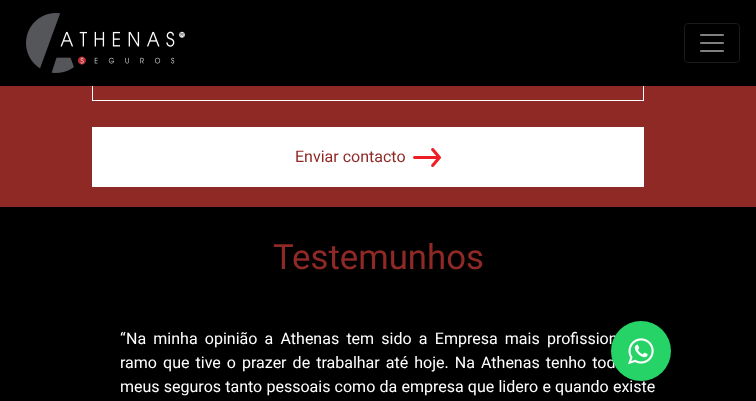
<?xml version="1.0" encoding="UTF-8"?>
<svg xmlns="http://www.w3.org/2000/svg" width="756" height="401">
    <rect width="100%" height="100%" fill="#000000"/>
    <rect x="0" y="86" width="756" height="121" fill="#8E2926"/>
    <rect x="92.5" y="41.5" width="551" height="59" fill="none" stroke="#FFFFFF"/>
    <rect x="92" y="41" width="552" height="45" fill="#000000"/>
    <image x="26" y="13" width="159" height="60" href="img_01.png"/>
    <rect x="684.5" y="23.5" width="55" height="39" rx="3.5" fill="none" stroke="#1A1A1A"/>
    <image x="700" y="34" width="24" height="18" href="img_02.png"/>
    <rect x="92" y="127" width="552" height="60" fill="#FFFFFF"/>
    <text x="295" y="162" font-family="Roboto" font-size="16" fill="#8E2926">Enviar contacto</text>
    <image x="413" y="148" width="28" height="19" href="img_03.png"/>
    <text x="273" y="269" font-family="Roboto" font-size="34.75" fill="#8E2926">Testemunhos</text>
    <text x="120" y="344" font-family="Roboto" font-size="16" fill="#FFFFFF">“</text>
    <text x="126" y="344" word-spacing="3.25" font-family="Roboto" font-size="16" fill="#FFFFFF">Na minha opinião a Athenas tem sido a Empresa mais profission</text>
    <text font-family="Roboto" font-size="16" fill="#FFFFFF">
        <tspan x="120" y="368" word-spacing="2.1">ramo que tive o prazer de trabalhar até hoje. Na Athenas tenho tod</tspan>
        <tspan x="120" y="392" word-spacing="0.25">meus seguros tanto pessoais como da empresa que lidero e quando existe</tspan>
    </text>
    <circle cx="641" cy="351" r="30" fill="#25D366"/>
    <image x="628" y="338" width="26" height="27" href="img_04.png"/>
</svg>
